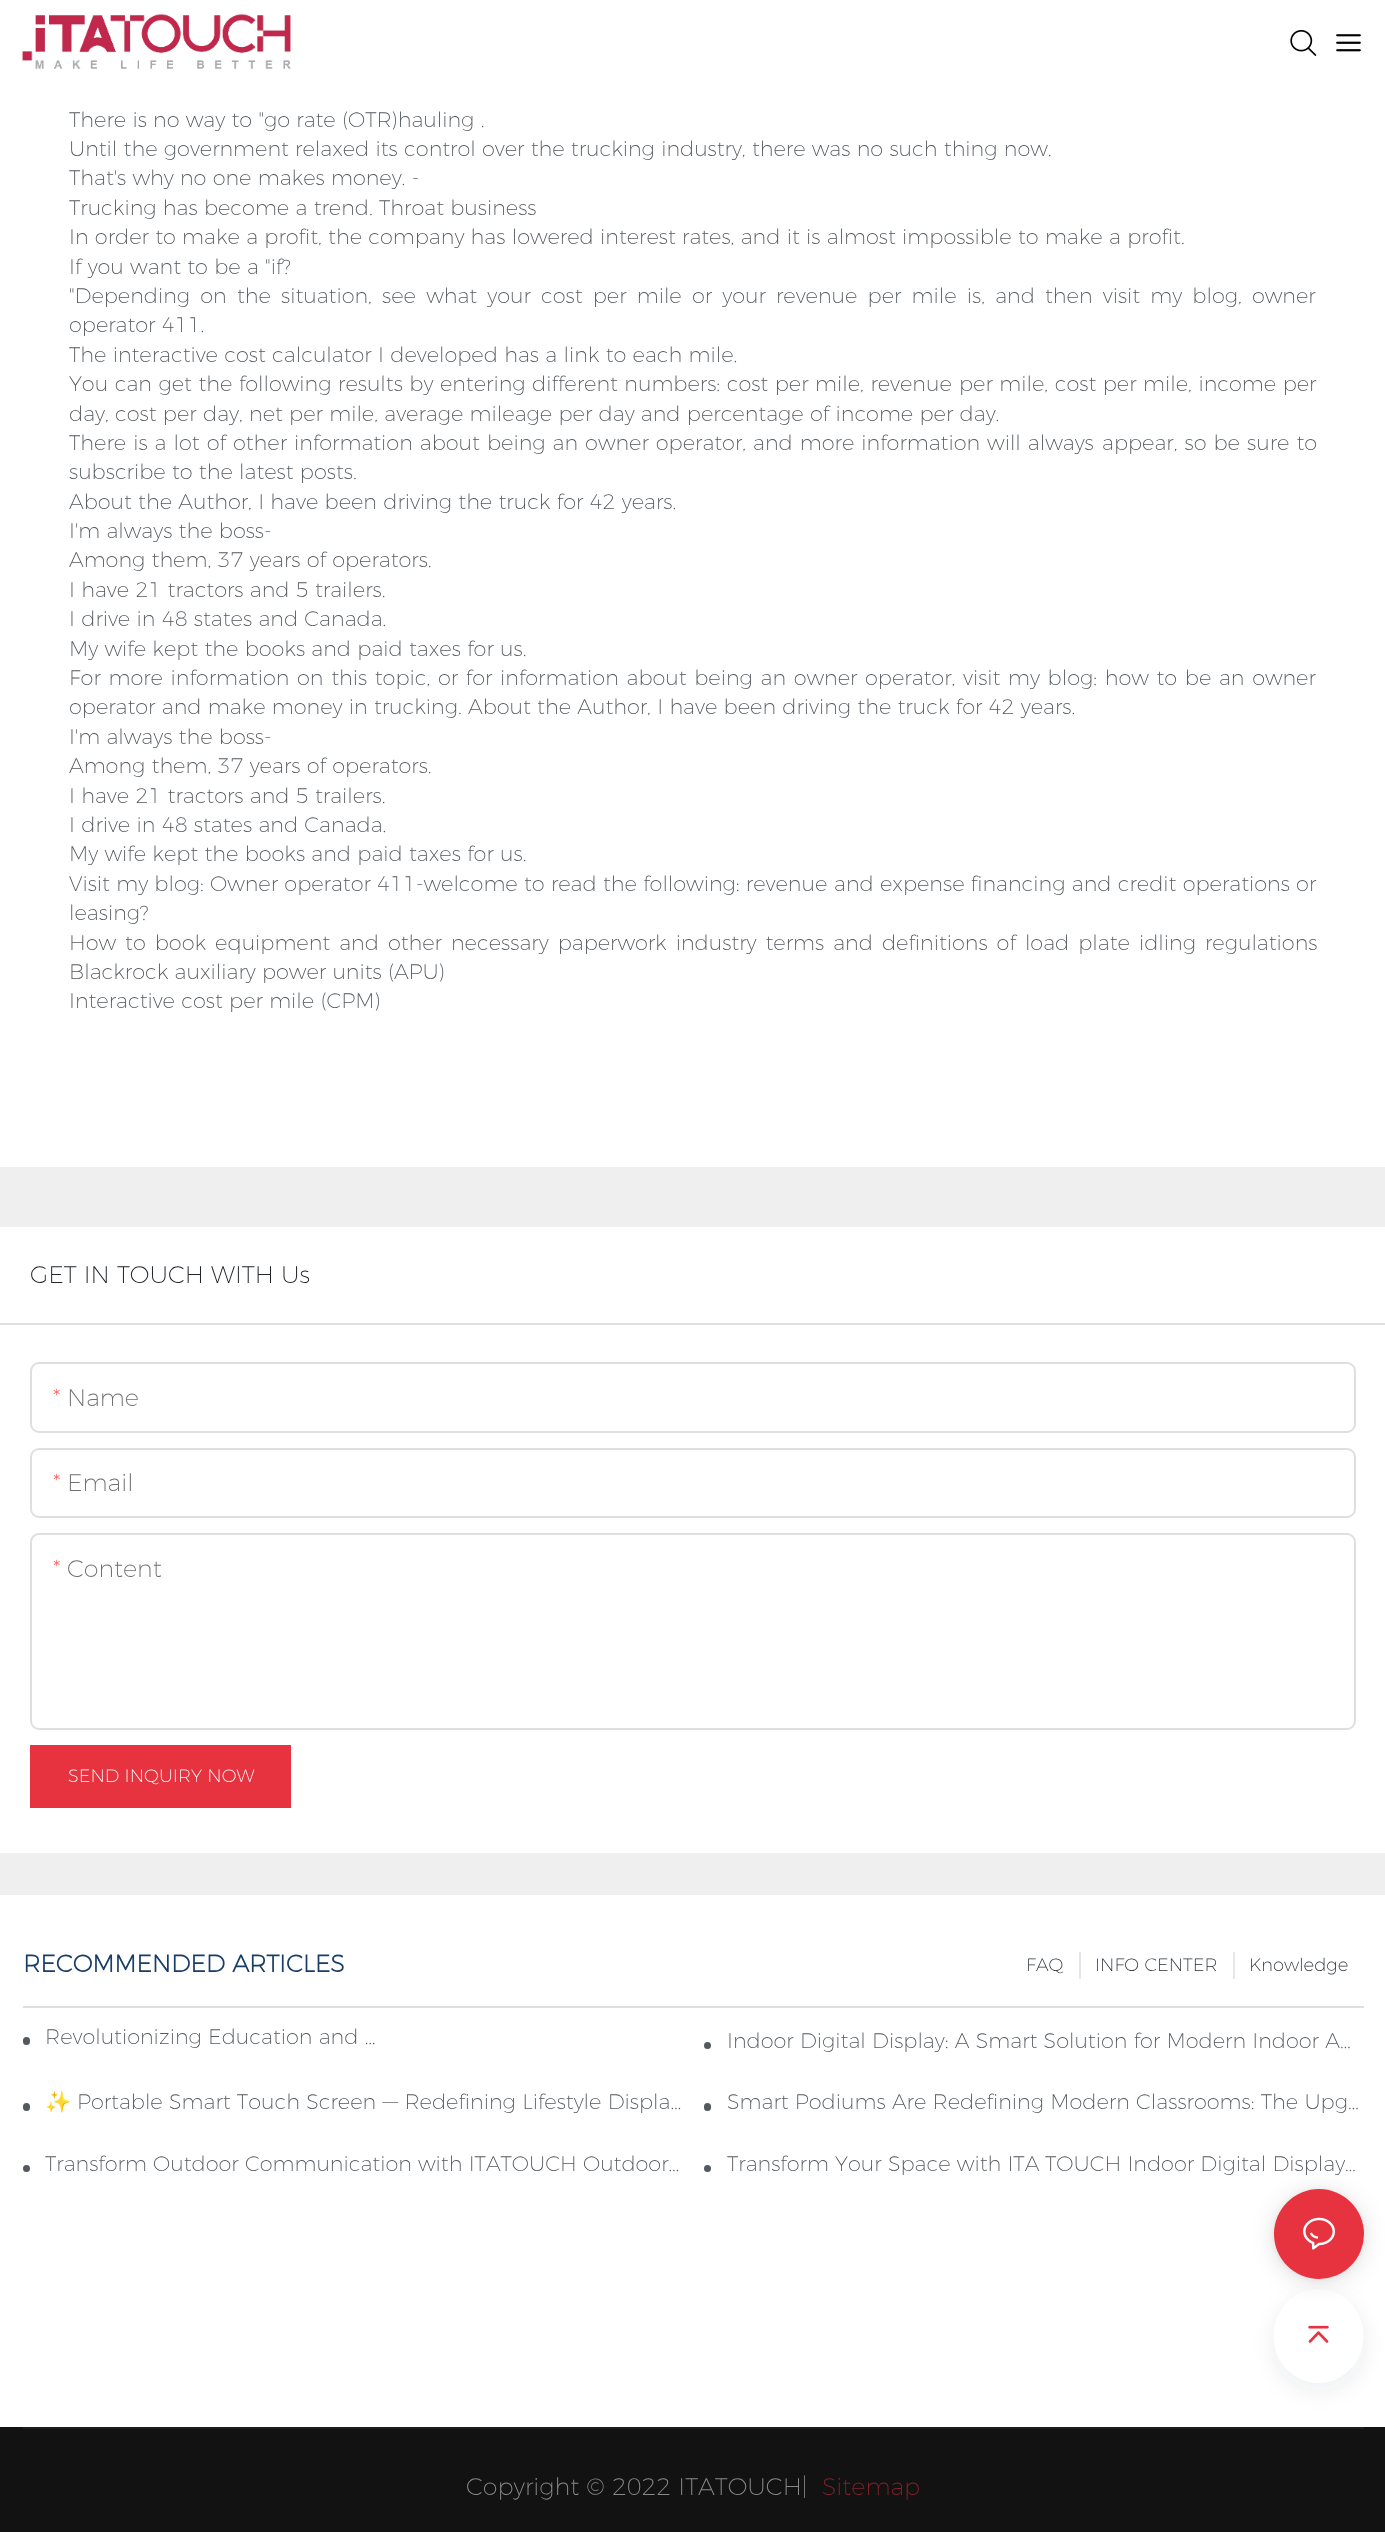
<?xml version="1.0" encoding="UTF-8"?>
<svg xmlns="http://www.w3.org/2000/svg" width="1385" height="2532">
    <style>*{font-kerning:none!important;font-variant-ligatures:none!important}</style>
    <defs>
        <filter id="blur1" x="-50%" y="-200%" width="200%" height="500%"><feGaussianBlur stdDeviation="11"/></filter>
        <filter id="blur2" x="-50%" y="-200%" width="200%" height="500%"><feGaussianBlur stdDeviation="12"/></filter>
        <filter id="blur3" x="-50%" y="-200%" width="200%" height="500%"><feGaussianBlur stdDeviation="3"/></filter>
    </defs>
    <rect width="100%" height="100%" fill="#FFFFFF"/>
    <image x="22" y="14" width="269" height="55" href="img_01.png"/>
    <image x="1290" y="30" width="27" height="26" href="img_02.png"/>
    <image x="1336" y="34" width="25" height="18" href="img_03.png"/>
    <rect x="0" y="1167" width="1385" height="728" fill="#EFEFEF"/>
    <text font-family="Montserrat" font-size="21" font-weight="200" fill="#53595E">
        <tspan x="69" y="127">There is no way to "go rate (OTR)hauling .</tspan>
        <tspan x="69" y="156">Until the government relaxed its control over the trucking industry, there was no such thing now.</tspan>
        <tspan x="69" y="185">That's why no one makes money. -</tspan>
        <tspan x="69" y="215">Trucking has become a trend. Throat business</tspan>
        <tspan x="69" y="244">In order to make a profit, the company has lowered interest rates, and it is almost impossible to make</tspan>
    </text>
    <text x="1109" y="244" font-family="Montserrat" font-size="21" font-weight="200" fill="#53595E">a profit.</text>
    <text font-family="Montserrat" font-size="21" font-weight="200" fill="#53595E">
        <tspan x="69" y="274">If you want to be a "if?</tspan>
        <tspan x="69" y="303" word-spacing="3.9">"Depending on the situation, see what your cost per mile or your revenue per mile is, and then visit my blog, owner</tspan>
        <tspan x="69" y="332">operator 411.</tspan>
        <tspan x="69" y="362">The interactive cost calculator</tspan>
    </text>
    <text x="378" y="362" font-family="Montserrat" font-size="21" font-weight="200" fill="#53595E">I developed has a link to each mile.</text>
    <text x="69" y="391" word-spacing="0.25" font-family="Montserrat" font-size="21" font-weight="200" fill="#53595E">You can get the following results by entering different numbers: cost per mile, revenue</text>
    <text x="959" y="391" word-spacing="0.25" font-family="Montserrat" font-size="21" font-weight="200" fill="#53595E">per mile, cost per mile, income per</text>
    <text x="69" y="421" font-family="Montserrat" font-size="21" font-weight="200" fill="#53595E">day, cost per day, net per mile, average mileage per day and percentage</text>
    <text x="810" y="421" font-family="Montserrat" font-size="21" font-weight="200" fill="#53595E">of income per day.</text>
    <text x="69" y="450" word-spacing="0.75" font-family="Montserrat" font-size="21" font-weight="200" fill="#53595E">There is a lot of other information about being an owner operator, and more information will always</text>
    <text x="1102" y="450" word-spacing="0.75" font-family="Montserrat" font-size="21" font-weight="200" fill="#53595E">appear, so be sure to</text>
    <text font-family="Montserrat" font-size="21" font-weight="200" fill="#53595E">
        <tspan x="69" y="479">subscribe to the latest posts.</tspan>
        <tspan x="69" y="509">About the Author, I have been driving the truck for 42 years.</tspan>
        <tspan x="69" y="538">I'm always the boss-</tspan>
        <tspan x="69" y="567">Among them, 37 years of operators.</tspan>
        <tspan x="69" y="597">I have 21 tractors and 5 trailers.</tspan>
        <tspan x="69" y="626">I drive in 48 states and Canada.</tspan>
        <tspan x="69" y="656">My wife kept the books and paid taxes for us.</tspan>
        <tspan x="69" y="685" word-spacing="1.4">For more information on this topic, or for information about being an owner operator, visit my blog: how to be an owner</tspan>
        <tspan x="69" y="714">operator and make money in trucking. About the Author, I have been driving the truck for 42 years.</tspan>
        <tspan x="69" y="744">I'm always the boss-</tspan>
        <tspan x="69" y="773">Among them, 37 years of operators.</tspan>
        <tspan x="69" y="803">I have 21 tractors and 5 trailers.</tspan>
        <tspan x="69" y="832">I drive in 48 states and Canada.</tspan>
        <tspan x="69" y="861">My wife kept the books and paid taxes for us.</tspan>
        <tspan x="69" y="891">Visit my blog: Owner operator 411-welcome to read the following: revenue</tspan>
    </text>
    <text x="834" y="891" font-family="Montserrat" font-size="21" font-weight="200" fill="#53595E">and expense financing and credit operations or</text>
    <text font-family="Montserrat" font-size="21" font-weight="200" fill="#53595E">
        <tspan x="69" y="920">leasing?</tspan>
        <tspan x="69" y="950" word-spacing="2.75">How to book equipment and other necessary paperwork industry terms and definitions of load plate idling regulations</tspan>
        <tspan x="69" y="979">Blackrock auxiliary power units (APU)</tspan>
        <tspan x="69" y="1008">Interactive cost per mile (CPM)</tspan>
    </text>
    <rect x="0" y="1227" width="1385" height="626" fill="#FFFFFF"/>
    <rect x="0" y="1323" width="1385" height="2" fill="#DFDFE1"/>
    <text x="30" y="1283" font-family="Montserrat" font-size="24" font-weight="200" fill="#212529">GET IN TOUCH WITH Us</text>
    <rect x="31" y="1363" width="1324" height="69" rx="8" fill="none" stroke="#DFDFE1" stroke-width="2"/>
    <text x="53" y="1406" font-family="Montserrat" font-size="24" font-weight="200" fill="#FF4D4D">*</text>
    <text x="67" y="1406" font-family="Montserrat" font-size="24" font-weight="200" fill="#707070">Name</text>
    <rect x="31" y="1449" width="1324" height="68" rx="8" fill="none" stroke="#DFDFE1" stroke-width="2"/>
    <text x="53" y="1491" font-family="Montserrat" font-size="24" font-weight="200" fill="#FF4D4D">*</text>
    <text x="67" y="1491" font-family="Montserrat" font-size="24" font-weight="200" fill="#707070">Email</text>
    <rect x="31" y="1534" width="1324" height="195" rx="8" fill="none" stroke="#DFDFE1" stroke-width="2"/>
    <text x="53" y="1577" font-family="Montserrat" font-size="24" font-weight="200" fill="#FF4D4D">*</text>
    <text x="67" y="1577" font-family="Montserrat" font-size="24" font-weight="200" fill="#707070">Content</text>
    <rect x="30" y="1745" width="261" height="63" fill="#E7333F"/>
    <text x="68" y="1782" font-family="Montserrat" font-size="18" font-weight="200" fill="#FFFFFF">SEND INQUIRY NOW</text>
    <rect x="23" y="2006" width="1341" height="2" fill="#DFDFE1"/>
    <text x="23" y="1972" font-family="Montserrat" font-size="24" font-weight="700" fill="#183D66">RECOMMENDED ARTICLES</text>
    <text x="1026" y="1971" font-family="Montserrat" font-size="18" font-weight="200" fill="#283036">FAQ</text>
    <rect x="1079" y="1952" width="2" height="27" fill="#E6E6E6"/>
    <text x="1095" y="1971" font-family="Montserrat" font-size="18" font-weight="200" fill="#283036">INFO CENTER</text>
    <rect x="1233" y="1952" width="2" height="27" fill="#E6E6E6"/>
    <text x="1249" y="1971" font-family="Montserrat" font-size="18" font-weight="200" fill="#283036">Knowledge</text>
    <rect x="24.5" y="2038.5" width="4" height="5" rx="2" fill="#5C5C5C" stroke="#53595E" stroke-width="3"/>
    <text x="45" y="2044" font-family="Montserrat" font-size="21" font-weight="200" fill="#53595E">Revolutionizing Education and …</text>
    <circle cx="707.5" cy="2045.5" r="2" fill="#5C5C5C" stroke="#53595E" stroke-width="3"/>
    <text x="727" y="2048" font-family="Montserrat" font-size="21" font-weight="200" fill="#53595E">Indoor Digital Display: A Smart Solution for Modern Indoor A…</text>
    <rect x="24.5" y="2104.5" width="4" height="5" rx="2" fill="#5C5C5C" stroke="#53595E" stroke-width="3"/>
    <text x="45" y="2109" font-family="Noto Color Emoji" font-size="21" fill="#53595E">✨</text>
    <text x="77" y="2109" font-family="Montserrat" font-size="21" font-weight="200" fill="#53595E">Portable Smart Touch Screen — Redefining Lifestyle Displa…</text>
    <rect x="705.5" y="2104.5" width="4" height="5" rx="2" fill="#5C5C5C" stroke="#53595E" stroke-width="3"/>
    <text x="727" y="2109" font-family="Montserrat" font-size="21" font-weight="200" fill="#53595E">Smart Podiums Are Redefining Modern Classrooms: The Upg…</text>
    <circle cx="26.5" cy="2168.5" r="2" fill="#5C5C5C" stroke="#53595E" stroke-width="3"/>
    <text x="45" y="2171" font-family="Montserrat" font-size="21" font-weight="200" fill="#53595E">Transform Outdoor Communication with ITATOUCH</text>
    <text x="583" y="2171" font-family="Montserrat" font-size="21" font-weight="200" fill="#53595E">Outdoor…</text>
    <circle cx="707.5" cy="2168.5" r="2" fill="#5C5C5C" stroke="#53595E" stroke-width="3"/>
    <text x="727" y="2171" font-family="Montserrat" font-size="21" font-weight="200" fill="#53595E">Transform Your Space with ITA</text>
    <text x="1045" y="2171" font-family="Montserrat" font-size="21" font-weight="200" fill="#53595E">TOUCH Indoor Digital Display…</text>
    <rect x="0" y="2427" width="1385" height="105" fill="#121212"/>
    <rect x="23" y="2427" width="1341" height="2" fill="#1E1E1E"/>
    <text x="466" y="2495" font-family="Montserrat" font-size="24" font-weight="200" fill="#898989">Copyright © 2022 ITATOUCH|</text>
    <text x="822" y="2495" font-family="Montserrat" font-size="24" font-weight="200" fill="#7D2329">Sitemap</text>
    <rect x="1274" y="2297" width="90" height="94" rx="45" fill="#282F36" fill-opacity="0.08" filter="url(#blur1)"/>
    <ellipse cx="1318.5" cy="2336" rx="45" ry="47" fill="#FFFFFF"/>
    <rect x="1274" y="2192" width="90" height="90" rx="45" fill="#000000" fill-opacity="0.12" filter="url(#blur2)"/>
    <rect x="1274" y="2190" width="90" height="90" rx="45" fill="#000000" fill-opacity="0.06" filter="url(#blur3)"/>
    <circle cx="1319" cy="2234" r="45" fill="#E7333F"/>
    <image x="1303" y="2217" width="32" height="33" href="img_04.png"/>
    <image x="1308" y="2325" width="21" height="18" href="img_05.png"/>
</svg>
